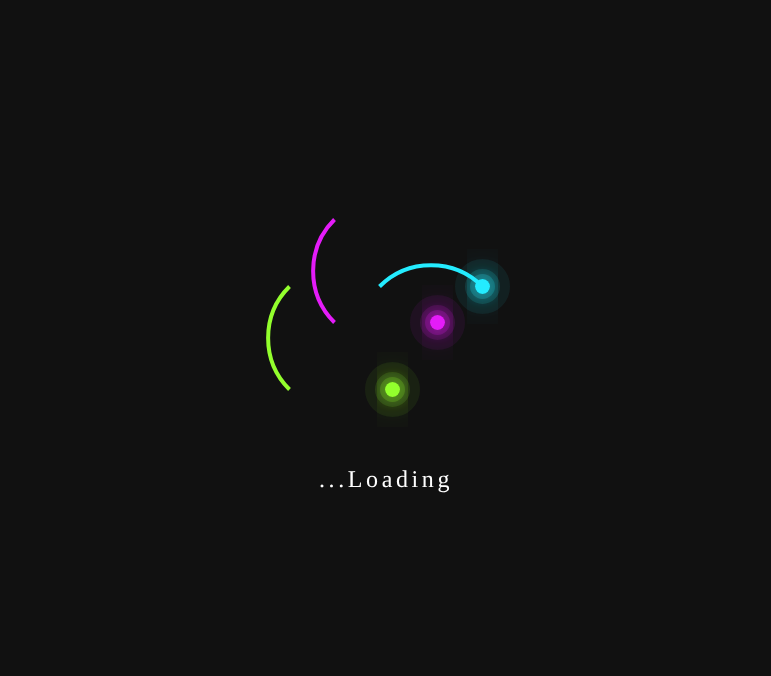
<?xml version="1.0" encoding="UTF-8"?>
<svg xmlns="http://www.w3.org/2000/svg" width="771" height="676">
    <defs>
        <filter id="blur1" x="-50%" y="-200%" width="200%" height="500%"><feGaussianBlur stdDeviation="25"/></filter>
        <filter id="blur2" x="-50%" y="-200%" width="200%" height="500%"><feGaussianBlur stdDeviation="10"/></filter>
    </defs>
    <rect width="100%" height="100%" fill="#111111"/>
    <path d="M 379.5 286.5 C 407.5 258 454.5 258 482.5 286.5" fill="none" stroke="#24ECFF" stroke-width="4"/>
    <rect x="475" y="279" width="15" height="15" rx="7.5" fill="#24ECFF" filter="url(#blur1)"/>
    <rect x="475" y="279" width="15" height="15" rx="7.5" fill="#24ECFF" filter="url(#blur2)"/>
    <circle cx="482.5" cy="286.5" r="17.5" fill="none" stroke="#24ECFF" stroke-opacity="0.07" stroke-width="20"/>
    <circle cx="482.5" cy="286.5" r="12.5" fill="none" stroke="#24ECFF" stroke-opacity="0.13" stroke-width="10"/>
    <circle cx="482.5" cy="286.5" r="10" fill="none" stroke="#24ECFF" stroke-opacity="0.2" stroke-width="5"/>
    <circle cx="482.5" cy="286.5" r="7.5" fill="#24ECFF"/>
    <rect x="385" y="382" width="15" height="15" rx="7.5" fill="#93FF2D" filter="url(#blur1)"/>
    <path d="M 334.5 322.5 C 306 294.5 306 247.5 334.5 219.5" fill="none" stroke="#E41CF8" stroke-width="4"/>
    <rect x="385" y="382" width="15" height="15" rx="7.5" fill="#93FF2D" filter="url(#blur2)"/>
    <circle cx="392.5" cy="389.5" r="17.5" fill="none" stroke="#93FF2D" stroke-opacity="0.07" stroke-width="20"/>
    <circle cx="392.5" cy="389.5" r="12.5" fill="none" stroke="#93FF2D" stroke-opacity="0.13" stroke-width="10"/>
    <circle cx="392.5" cy="389.5" r="10" fill="none" stroke="#93FF2D" stroke-opacity="0.2" stroke-width="5"/>
    <circle cx="392.5" cy="389.5" r="7.5" fill="#93FF2D"/>
    <rect x="430" y="315" width="15" height="15" rx="7.5" fill="#E41CF8" filter="url(#blur1)"/>
    <rect x="430" y="315" width="15" height="15" rx="7.5" fill="#E41CF8" filter="url(#blur2)"/>
    <circle cx="437.5" cy="322.5" r="17.5" fill="none" stroke="#E41CF8" stroke-opacity="0.07" stroke-width="20"/>
    <circle cx="437.5" cy="322.5" r="12.5" fill="none" stroke="#E41CF8" stroke-opacity="0.13" stroke-width="10"/>
    <circle cx="437.5" cy="322.5" r="10" fill="none" stroke="#E41CF8" stroke-opacity="0.2" stroke-width="5"/>
    <circle cx="437.5" cy="322.5" r="7.5" fill="#E41CF8"/>
    <path d="M 289.5 389.5 C 261 361.5 261 314.5 289.5 286.5" fill="none" stroke="#93FF2D" stroke-width="4"/>
    <text x="319" y="487" font-family="Liberation Serif" font-size="24" letter-spacing="3.6" fill="#FFFFFF">...Loading</text>
</svg>
